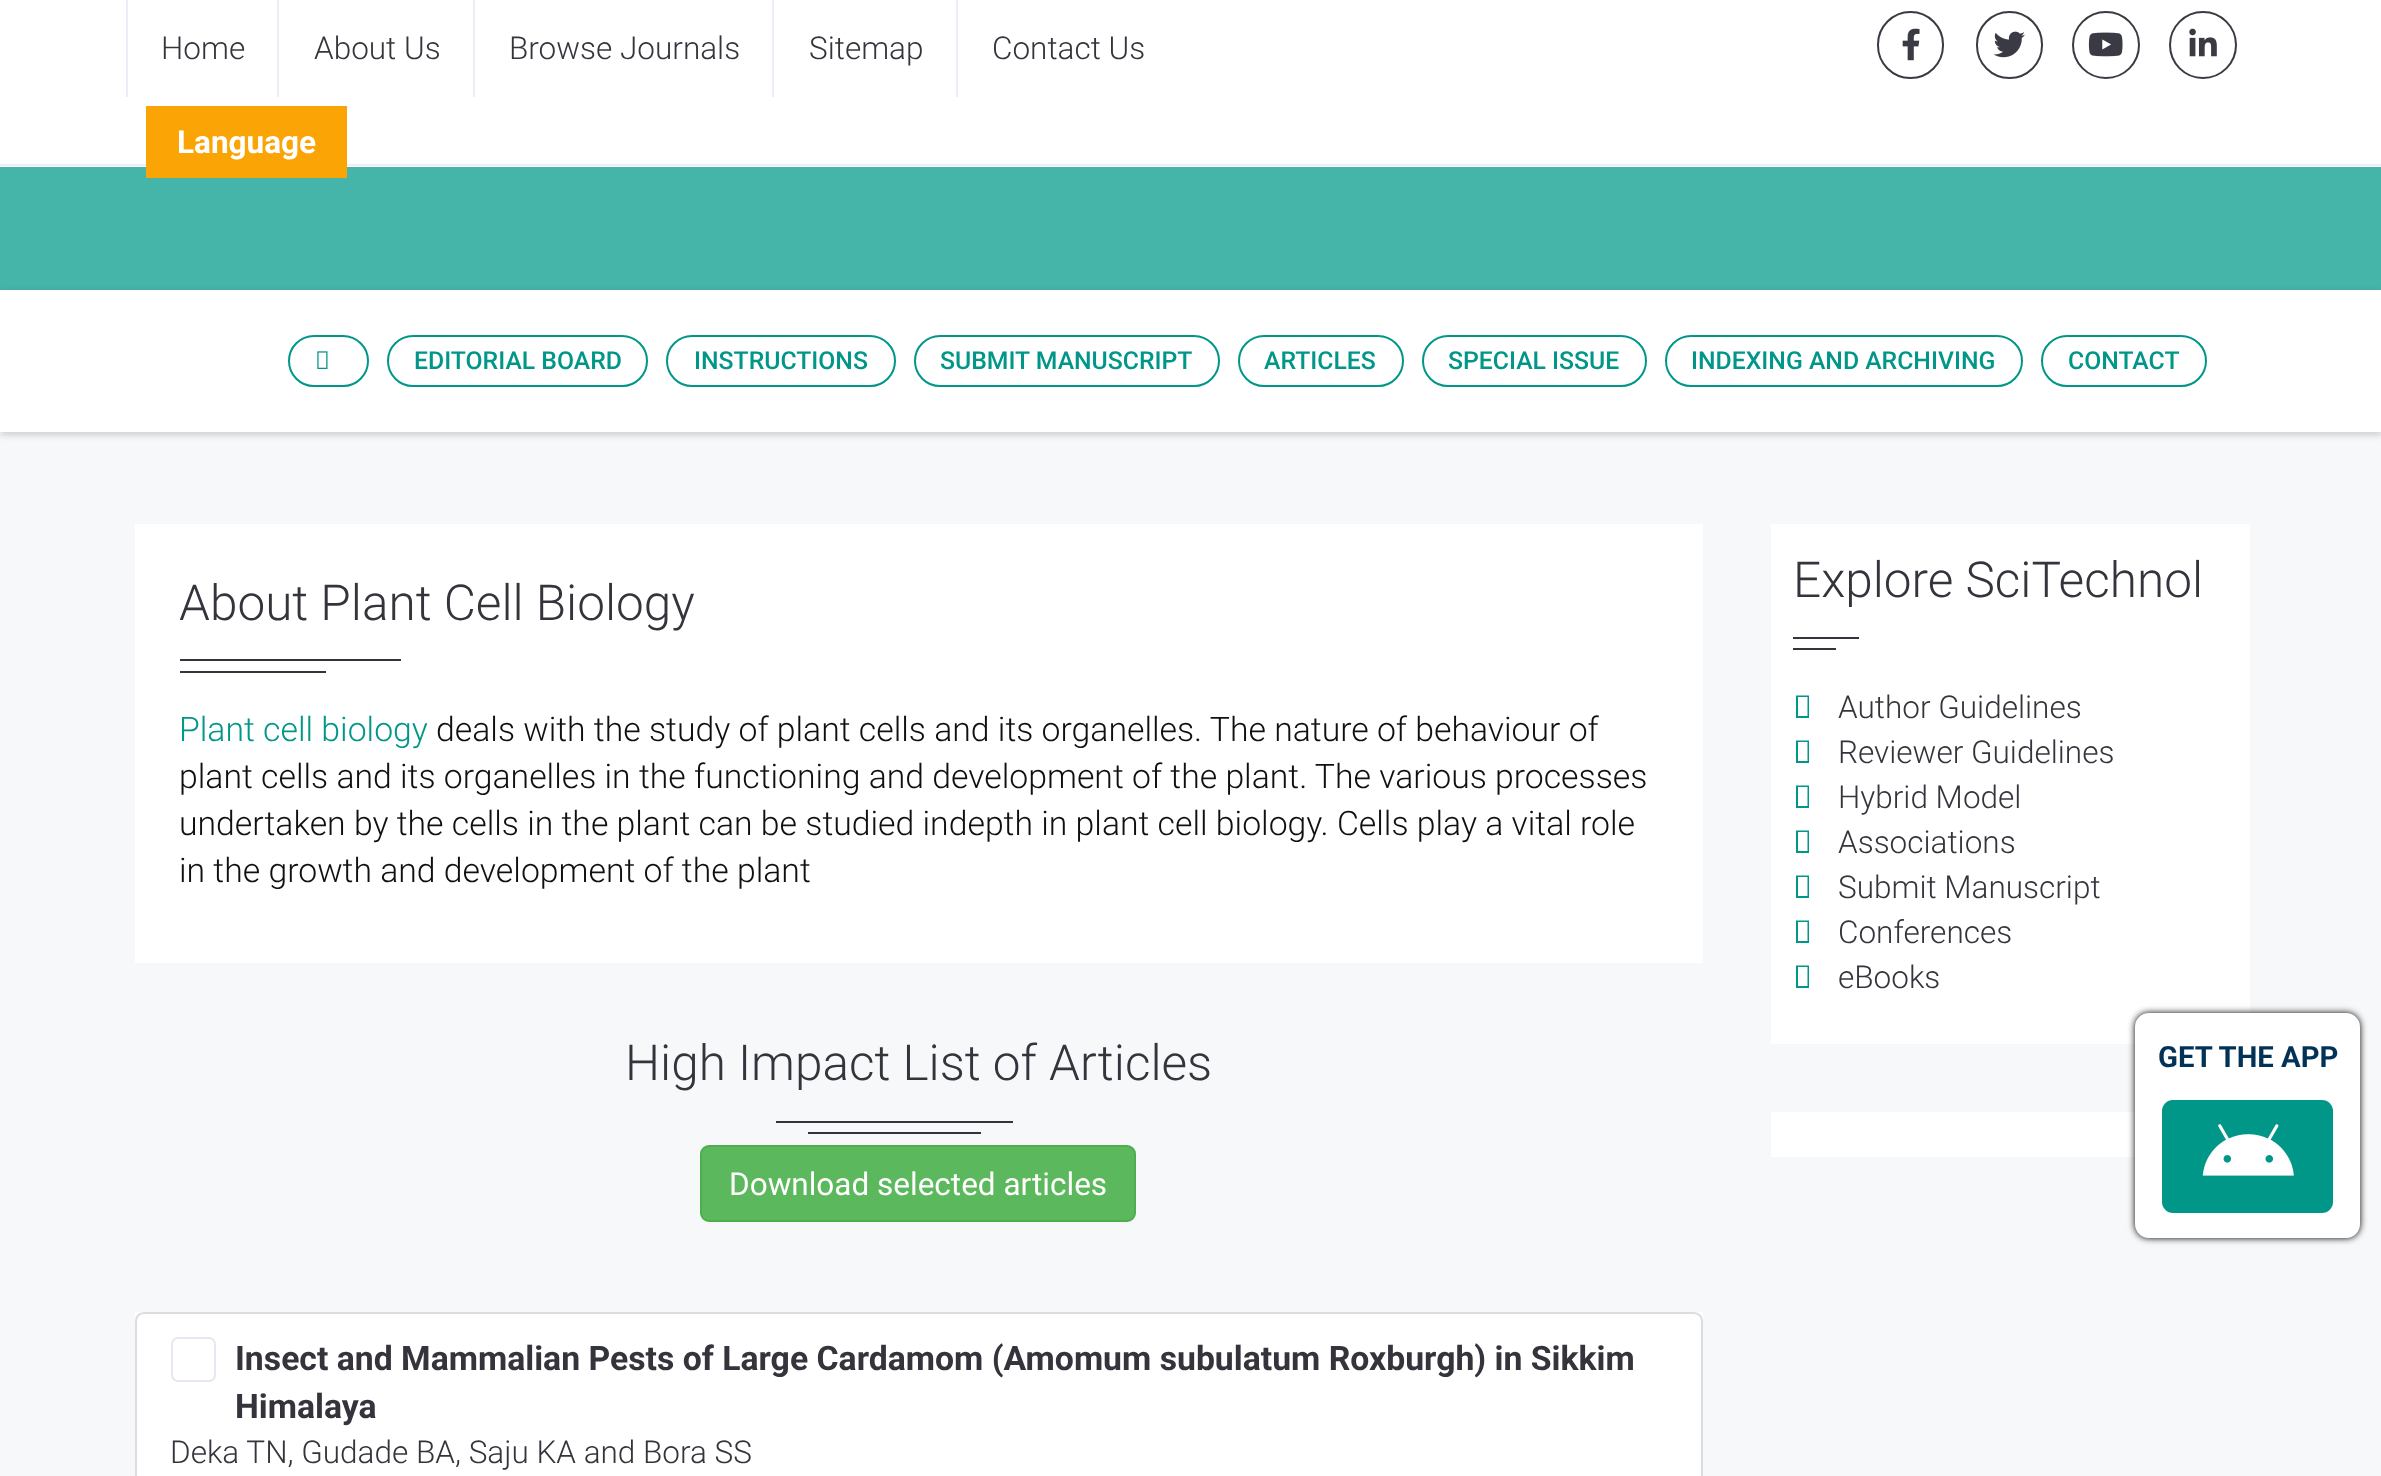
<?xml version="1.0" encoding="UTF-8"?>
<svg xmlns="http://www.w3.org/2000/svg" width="2381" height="1476">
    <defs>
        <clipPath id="clip1"><path d="M 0 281 H 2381 V 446 H 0 Z M 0 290 H 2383 V 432 H 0 Z" clip-rule="evenodd"/></clipPath>
        <filter id="blur1" x="-50%" y="-200%" width="200%" height="500%"><feGaussianBlur stdDeviation="3.5"/></filter>
    </defs>
    <rect width="100%" height="100%" fill="#FFFFFF"/>
    <rect x="0" y="164" width="2381" height="2" fill="#EBEEF6"/>
    <rect x="126" y="0" width="2" height="97" fill="#EBEEF6"/>
    <text x="161" y="59" font-family="Roboto" font-size="31.5" font-weight="300" fill="#34343C">Home</text>
    <rect x="277" y="0" width="2" height="97" fill="#EBEEF6"/>
    <text x="314" y="59" font-family="Roboto" font-size="31.5" font-weight="300" fill="#34343C">About Us</text>
    <rect x="473" y="0" width="2" height="97" fill="#EBEEF6"/>
    <text x="509" y="59" font-family="Roboto" font-size="31.5" font-weight="300" fill="#34343C">Browse Journals</text>
    <rect x="772" y="0" width="2" height="97" fill="#EBEEF6"/>
    <text x="809" y="59" font-family="Roboto" font-size="31.5" font-weight="300" fill="#34343C">Sitemap</text>
    <rect x="956" y="0" width="2" height="97" fill="#EBEEF6"/>
    <text x="992" y="59" font-family="Roboto" font-size="31.5" font-weight="300" fill="#34343C">Contact Us</text>
    <rect x="0" y="167" width="2381" height="123" fill="#45B4A9"/>
    <rect x="146" y="106" width="201" height="72" fill="#FBA405"/>
    <text x="177" y="153" font-family="Roboto" font-size="31.5" font-weight="700" fill="#FFFFFF">Language</text>
    <rect x="1878" y="12" width="65" height="66" rx="32.5" fill="none" stroke="#3A3A44" stroke-width="2"/>
    <image x="1902" y="28" width="18" height="33" href="img_01.png"/>
    <rect x="1977" y="12" width="65" height="66" rx="32.5" fill="none" stroke="#3A3A44" stroke-width="2"/>
    <image x="1993" y="31" width="32" height="27" href="img_02.png"/>
    <circle cx="2106" cy="45" r="33" fill="none" stroke="#3A3A44" stroke-width="2"/>
    <image x="2088" y="32" width="35" height="25" href="img_03.png"/>
    <circle cx="2203" cy="45" r="33" fill="none" stroke="#3A3A44" stroke-width="2"/>
    <image x="2189" y="28" width="28" height="29" href="img_04.png"/>
    <rect x="0" y="434" width="2381" height="1042" fill="#F7F8FA"/>
    <g clip-path="url(#clip1)">
        <rect x="0" y="293" width="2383" height="141" fill="#000000" fill-opacity="0.24" filter="url(#blur1)"/>
    </g>
    <rect x="289" y="336" width="79" height="50" rx="25" fill="none" stroke="#009688" stroke-width="2"/>
    <image x="317" y="351" width="11" height="18" href="img_05.png"/>
    <rect x="388" y="336" width="259" height="50" rx="25" fill="none" stroke="#009688" stroke-width="2"/>
    <text x="414" y="369" font-family="Roboto" font-size="24.75" font-weight="500" fill="#009688">EDITORIAL BOARD</text>
    <rect x="667" y="336" width="228" height="50" rx="25" fill="none" stroke="#009688" stroke-width="2"/>
    <text x="694" y="369" font-family="Roboto" font-size="24.75" font-weight="500" fill="#009688">INSTRUCTIONS</text>
    <rect x="915" y="336" width="304" height="50" rx="25" fill="none" stroke="#009688" stroke-width="2"/>
    <text x="940" y="369" font-family="Roboto" font-size="24.75" font-weight="500" fill="#009688">SUBMIT MANUSCRIPT</text>
    <rect x="1239" y="336" width="164" height="50" rx="25" fill="none" stroke="#009688" stroke-width="2"/>
    <text x="1264" y="369" font-family="Roboto" font-size="24.75" font-weight="500" fill="#009688">ARTICLES</text>
    <rect x="1423" y="336" width="223" height="50" rx="25" fill="none" stroke="#009688" stroke-width="2"/>
    <text x="1448" y="369" font-family="Roboto" font-size="24.75" font-weight="500" fill="#009688">SPECIAL ISSUE</text>
    <rect x="1666" y="336" width="356" height="50" rx="25" fill="none" stroke="#009688" stroke-width="2"/>
    <text x="1691" y="369" font-family="Roboto" font-size="24.75" font-weight="500" fill="#009688">INDEXING AND ARCHIVING</text>
    <rect x="2042" y="336" width="164" height="50" rx="25" fill="none" stroke="#009688" stroke-width="2"/>
    <text x="2068" y="369" font-family="Roboto" font-size="24.75" font-weight="500" fill="#009688">CONTACT</text>
    <rect x="135" y="524" width="1568" height="439" fill="#FFFFFF"/>
    <text x="179" y="620" font-family="Roboto" font-size="49.5" font-weight="300" fill="#34343C">About Plant Cell Biology</text>
    <rect x="180" y="659" width="221" height="2" fill="#34343C"/>
    <rect x="180" y="671" width="146" height="2" fill="#34343C"/>
    <text x="179" y="741" font-family="Roboto" font-size="33.75" font-weight="300" fill="#009688">Plant cell biology</text>
    <text x="436" y="741" font-family="Roboto" font-size="33.75" font-weight="300" fill="#101010">deals with the study of plant cells and its organelles. The nature of behaviour of</text>
    <text font-family="Roboto" font-size="33.75" font-weight="300" fill="#101010">
        <tspan x="179" y="788">plant cells and its organelles in the functioning and development of the plant. The various processes</tspan>
        <tspan x="179" y="835">undertaken by the cells in the plant can be studied indepth in plant cell biology. Cells play a vital role</tspan>
        <tspan x="179" y="882">in the growth and development of the plant</tspan>
    </text>
    <text x="625" y="1080" font-family="Roboto" font-size="49.5" font-weight="300" fill="#34343C">High Impact List of Articles</text>
    <rect x="776" y="1121" width="237" height="2" fill="#34343C"/>
    <rect x="808" y="1132" width="173" height="2" fill="#34343C"/>
    <rect x="701" y="1146" width="434" height="75" rx="8" fill="#5CB85C" stroke="#4CAE4C" stroke-width="2"/>
    <text x="729" y="1195" font-family="Roboto" font-size="31.5" fill="#FFFFFF">Download selected articles</text>
    <rect x="135" y="1312" width="1568" height="164" fill="#FFFFFF"/>
    <path d="M 144 1313 H 1694 C 1698.5 1313 1702 1316.5 1702 1321 V 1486 H 136 V 1321 C 136 1316.5 139.5 1313 144 1313 Z" fill="none" stroke="#DDDDDD" stroke-width="2"/>
    <rect x="172" y="1338" width="43" height="43" rx="6" fill="none" stroke="#E4E8F3" stroke-width="2"/>
    <text font-family="Roboto" font-size="33.75" font-weight="700" fill="#34343C">
        <tspan x="235" y="1370">Insect and Mammalian Pests of Large Cardamom (Amomum subulatum Roxburgh) in Sikkim</tspan>
        <tspan x="235" y="1418">Himalaya</tspan>
    </text>
    <text x="170" y="1463" font-family="Roboto" font-size="31.5" font-weight="300" fill="#34343C">Deka TN, Gudade BA, Saju KA and Bora SS</text>
    <rect x="1771" y="524" width="479" height="520" fill="#FFFFFF"/>
    <text x="1793" y="597" font-family="Roboto" font-size="49.5" font-weight="300" fill="#34343C">Explore SciTechnol</text>
    <rect x="1793" y="637" width="66" height="2" fill="#34343C"/>
    <rect x="1793" y="648" width="43" height="2" fill="#34343C"/>
    <path d="M 1796 718 V 695.5 H 1809 V 718 Z M 1798 716 H 1807.5 V 697 H 1798 Z" fill="#009688"/>
    <text x="1838" y="718" font-family="Roboto" font-size="31.5" font-weight="300" fill="#34343C">Author Guidelines</text>
    <path d="M 1796 763 V 740.5 H 1809 V 763 Z M 1798 761 H 1807.5 V 742 H 1798 Z" fill="#009688"/>
    <text x="1838" y="763" font-family="Roboto" font-size="31.5" font-weight="300" fill="#34343C">Reviewer Guidelines</text>
    <path d="M 1796 808 V 785.5 H 1809 V 808 Z M 1798 806 H 1807.5 V 787 H 1798 Z" fill="#009688"/>
    <text x="1838" y="808" font-family="Roboto" font-size="31.5" font-weight="300" fill="#34343C">Hybrid Model</text>
    <path d="M 1796 853 V 830.5 H 1809 V 853 Z M 1798 851 H 1807.5 V 832 H 1798 Z" fill="#009688"/>
    <text x="1838" y="853" font-family="Roboto" font-size="31.5" font-weight="300" fill="#34343C">Associations</text>
    <path d="M 1796 898 V 875.5 H 1809 V 898 Z M 1798 896 H 1807.5 V 877 H 1798 Z" fill="#009688"/>
    <text x="1838" y="898" font-family="Roboto" font-size="31.5" font-weight="300" fill="#34343C">Submit Manuscript</text>
    <path d="M 1796 943 V 920.5 H 1809 V 943 Z M 1798 941 H 1807.5 V 922 H 1798 Z" fill="#009688"/>
    <text x="1838" y="943" font-family="Roboto" font-size="31.5" font-weight="300" fill="#34343C">Conferences</text>
    <path d="M 1796 988 V 965.5 H 1809 V 988 Z M 1798 986 H 1807.5 V 967 H 1798 Z" fill="#009688"/>
    <text x="1838" y="988" font-family="Roboto" font-size="31.5" font-weight="300" fill="#34343C">eBooks</text>
    <rect x="1771" y="1112" width="364" height="45" fill="#FFFFFF"/>
    <rect x="2135" y="1013" width="225" height="225" rx="14" fill="#000000" filter="url(#blur1)"/>
    <rect x="2136" y="1014" width="223" height="223" rx="13" fill="#FFFFFF" stroke="#FFFFFF" stroke-width="2"/>
    <text x="2158" y="1067" font-family="Roboto" font-size="29.25" font-weight="700" fill="#023256">GET THE APP</text>
    <rect x="2162" y="1100" width="171" height="113" rx="11" fill="#009688"/>
    <image x="2202" y="1124" width="92" height="52" href="img_06.png"/>
</svg>
